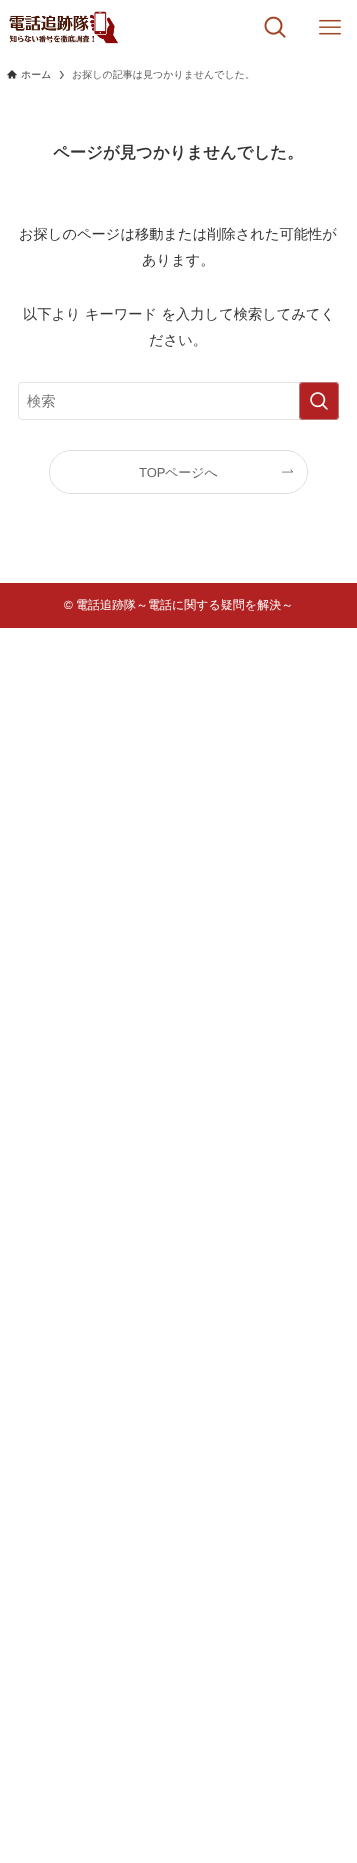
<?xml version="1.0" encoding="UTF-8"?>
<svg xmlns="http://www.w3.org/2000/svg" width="357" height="1863">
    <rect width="100%" height="100%" fill="#FFFFFF"/>
    <image x="9" y="11" width="109" height="33" href="img_01.png"/>
    <image x="264" y="16" width="22" height="22" href="img_02.png"/>
    <image x="319" y="19" width="22" height="16" href="img_03.png"/>
    <image x="7" y="70" width="10" height="9" href="img_04.png"/>
    <text x="21" y="78" font-family="WenQuanYi Zen Hei" font-size="10" font-weight="500" fill="#333333">ホーム</text>
    <path d="M 61 71 H 59.5 L 62.5 75 L 59.5 79 H 61 L 64 75 Z" fill="#5C5C5C"/>
    <text x="72" y="78" font-family="WenQuanYi Zen Hei" font-size="10" font-weight="500" fill="#5C5C5C">お探しの記事は見つかりませんでした。</text>
    <text x="53" y="158" font-family="WenQuanYi Zen Hei" font-size="16.4" font-weight="700" fill="#333333">ページが見つかりませんでした。</text>
    <text x="19" y="239" font-family="WenQuanYi Zen Hei" font-size="14.25" font-weight="500" fill="#333333">お探しのページは移動または削除された可能性が</text>
    <text x="142" y="265" font-family="WenQuanYi Zen Hei" font-size="14.25" font-weight="500" fill="#333333">あります。</text>
    <text x="23" y="319" font-family="WenQuanYi Zen Hei" font-size="14.25" font-weight="500" fill="#333333">以下より キーワード を入力して検索してみてく</text>
    <text x="149" y="345" font-family="WenQuanYi Zen Hei" font-size="14.25" font-weight="500" fill="#333333">ださい。</text>
    <rect x="18.5" y="382.5" width="320" height="37" rx="3.5" fill="none" stroke="#E3E3E3"/>
    <text x="27" y="406" font-family="WenQuanYi Zen Hei" font-size="14.25" font-weight="500" fill="#757575">検索</text>
    <rect x="299" y="382" width="40" height="38" rx="4" fill="#B22222"/>
    <rect x="299.5" y="382.5" width="39" height="37" rx="3.5" fill="none" stroke="#C7C7C7" stroke-opacity="0.5"/>
    <image x="310" y="392" width="18" height="18" href="img_05.png"/>
    <rect x="49.5" y="450.5" width="258" height="43" rx="21.5" fill="none" stroke="#DCDCDC"/>
    <rect x="50" y="451" width="257" height="42" rx="21" fill="#FFFFFF"/>
    <text x="139" y="477" font-family="Liberation Sans" font-size="13" fill="#666666">TOP</text>
    <text x="165" y="477" font-family="WenQuanYi Zen Hei" font-size="13" font-weight="500" fill="#666666">ページへ</text>
    <image x="282" y="469" width="11" height="4" href="img_06.png"/>
    <rect x="0" y="583" width="357" height="45" fill="#B22222"/>
    <text x="64" y="609" font-family="Liberation Sans" font-size="12" fill="#FFFFFF">©</text>
    <text x="76" y="609" font-family="WenQuanYi Zen Hei" font-size="12" font-weight="500" fill="#FFFFFF">電話追跡隊～電話に関する疑問を解決～</text>
</svg>
